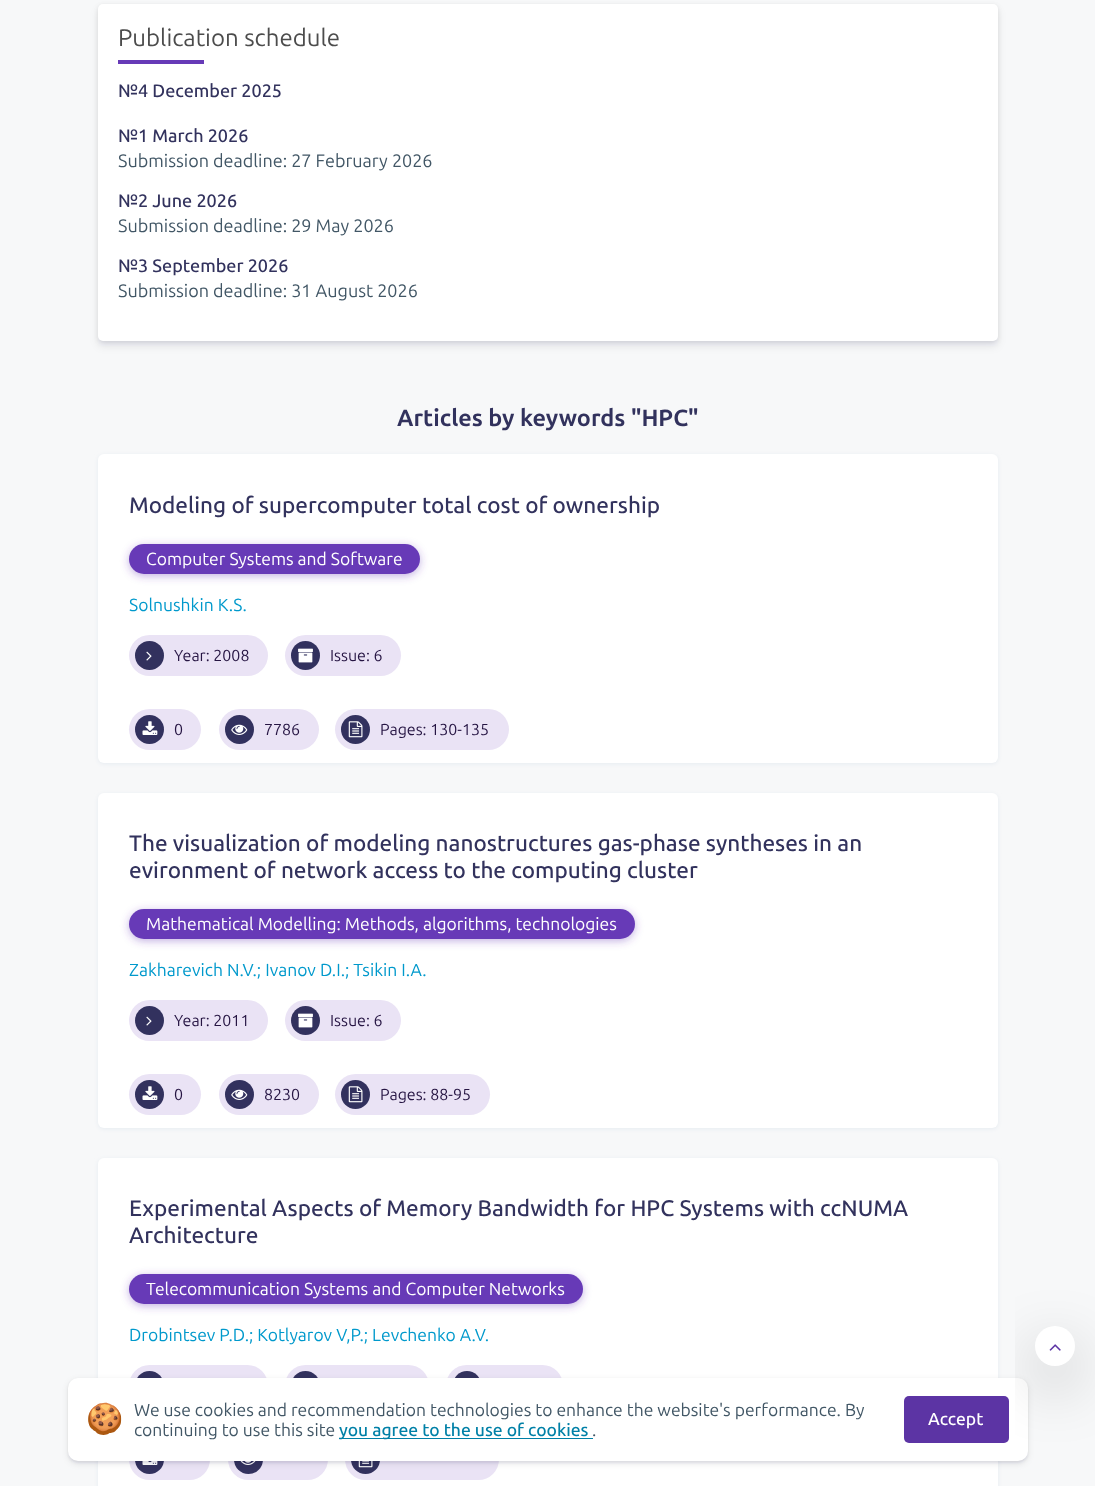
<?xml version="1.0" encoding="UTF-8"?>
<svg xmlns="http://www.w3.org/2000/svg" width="1095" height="1486">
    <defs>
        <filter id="blur1" x="-50%" y="-200%" width="200%" height="500%"><feGaussianBlur stdDeviation="2"/></filter>
        <filter id="blur2" x="-50%" y="-200%" width="200%" height="500%"><feGaussianBlur stdDeviation="4"/></filter>
        <filter id="blur3" x="-50%" y="-200%" width="200%" height="500%"><feGaussianBlur stdDeviation="1"/></filter>
        <filter id="blur4" x="-50%" y="-200%" width="200%" height="500%"><feGaussianBlur stdDeviation="3"/></filter>
        <filter id="blur5" x="-50%" y="-200%" width="200%" height="500%"><feGaussianBlur stdDeviation="30"/></filter>
    </defs>
    <rect width="100%" height="100%" fill="#F7F8F9"/>
    <rect x="98" y="5" width="900" height="338" rx="5" fill="#000000" fill-opacity="0.08" filter="url(#blur1)"/>
    <rect x="98" y="9" width="900" height="337" rx="5" fill="#0A2540" fill-opacity="0.09" filter="url(#blur2)"/>
    <rect x="98" y="4" width="900" height="337" rx="5" fill="#FFFFFF"/>
    <text x="118" y="46" font-family="Ubuntu" font-size="24" fill="#4C4C4C">Publication schedule</text>
    <rect x="118" y="60" width="86" height="4" fill="#673AB7"/>
    <text x="118" y="97" font-family="Ubuntu" font-size="18" font-weight="500" fill="#32325D">№4 December 2025</text>
    <text x="118" y="142" font-family="Ubuntu" font-size="18" font-weight="500" fill="#32325D">№1 March 2026</text>
    <text x="118" y="167" font-family="Ubuntu" font-size="18" fill="#425766">Submission deadline: 27 February 2026</text>
    <text x="118" y="207" font-family="Ubuntu" font-size="18" font-weight="500" fill="#32325D">№2 June 2026</text>
    <text x="118" y="232" font-family="Ubuntu" font-size="18" fill="#425766">Submission deadline: 29 May 2026</text>
    <text x="118" y="272" font-family="Ubuntu" font-size="18" font-weight="500" fill="#32325D">№3 September 2026</text>
    <text x="118" y="297" font-family="Ubuntu" font-size="18" fill="#425766">Submission deadline: 31 August 2026</text>
    <text x="397" y="426" font-family="Ubuntu" font-size="23.4" font-weight="700" fill="#32325D">Articles by keywords "HPC"</text>
    <rect x="98" y="455" width="900" height="309" rx="6" fill="#E6EBF1" filter="url(#blur1)"/>
    <rect x="98" y="454" width="900" height="309" rx="6" fill="#FFFFFF"/>
    <text x="129" y="513" font-family="Ubuntu" font-size="22.5" font-weight="500" fill="#32325D">Modeling of supercomputer total cost of ownership</text>
    <rect x="129" y="546" width="291" height="30" rx="15" fill="#673AB7" fill-opacity="0.4" filter="url(#blur2)"/>
    <rect x="129" y="544" width="291" height="30" rx="15" fill="#673AB7"/>
    <text x="146" y="565" font-family="Ubuntu" font-size="17.5" fill="#FFFFFF">Computer Systems and Software</text>
    <text x="129" y="611" font-family="Ubuntu" font-size="17.5" fill="#0099CC">Solnushkin K.S.</text>
    <rect x="129" y="635" width="139" height="41" rx="20.5" fill="#EAE3F5"/>
    <circle cx="149.5" cy="655.5" r="14.5" fill="#32315E"/>
    <image x="146" y="651" width="6" height="10" href="img_01.png"/>
    <text x="174" y="661" font-family="Ubuntu" font-size="16" fill="#261543">Year: 2008</text>
    <rect x="285" y="635" width="116" height="41" rx="20.5" fill="#EAE3F5"/>
    <circle cx="305.5" cy="655.5" r="14.5" fill="#32315E"/>
    <image x="298" y="648" width="15" height="15" href="img_02.png"/>
    <text x="330" y="661" font-family="Ubuntu" font-size="16" fill="#261543">Issue: 6</text>
    <rect x="129" y="709" width="72" height="41" rx="20.5" fill="#EAE3F5"/>
    <circle cx="149.5" cy="729.5" r="14.5" fill="#32315E"/>
    <image x="142" y="721" width="16" height="14" href="img_03.png"/>
    <text x="174" y="735" font-family="Ubuntu" font-size="16" fill="#261543">0</text>
    <rect x="219" y="709" width="100" height="41" rx="20.5" fill="#EAE3F5"/>
    <circle cx="239.5" cy="729.5" r="14.5" fill="#32315E"/>
    <image x="231" y="724" width="17" height="11" href="img_04.png"/>
    <text x="264" y="735" font-family="Ubuntu" font-size="16" fill="#261543">7786</text>
    <rect x="335" y="709" width="174" height="41" rx="20.5" fill="#EAE3F5"/>
    <circle cx="355.5" cy="729.5" r="14.5" fill="#32315E"/>
    <image x="348" y="721" width="15" height="17" href="img_05.png"/>
    <text x="380" y="735" font-family="Ubuntu" font-size="16" fill="#261543">Pages: 130-135</text>
    <rect x="98" y="794" width="900" height="335" rx="6" fill="#E6EBF1" filter="url(#blur1)"/>
    <rect x="98" y="793" width="900" height="335" rx="6" fill="#FFFFFF"/>
    <text font-family="Ubuntu" font-size="22.5" font-weight="500" fill="#32325D">
        <tspan x="129" y="851">The visualization of modeling nanostructures gas-phase syntheses in an</tspan>
        <tspan x="129" y="878">evironment of network access to the computing cluster</tspan>
    </text>
    <rect x="129" y="911" width="506" height="30" rx="15" fill="#673AB7" fill-opacity="0.4" filter="url(#blur2)"/>
    <rect x="129" y="909" width="506" height="30" rx="15" fill="#673AB7"/>
    <text x="146" y="930" font-family="Ubuntu" font-size="17.5" fill="#FFFFFF">Mathematical Modelling: Methods, algorithms, technologies</text>
    <text x="129" y="976" font-family="Ubuntu" font-size="17.5" fill="#0099CC">Zakharevich N.V.; Ivanov D.I.; Tsikin I.A.</text>
    <rect x="129" y="1000" width="139" height="41" rx="20.5" fill="#EAE3F5"/>
    <circle cx="149.5" cy="1020.5" r="14.5" fill="#32315E"/>
    <image x="146" y="1016" width="6" height="10" href="img_01.png"/>
    <text x="174" y="1026" font-family="Ubuntu" font-size="16" fill="#261543">Year: 2011</text>
    <rect x="285" y="1000" width="116" height="41" rx="20.5" fill="#EAE3F5"/>
    <circle cx="305.5" cy="1020.5" r="14.5" fill="#32315E"/>
    <image x="298" y="1013" width="15" height="15" href="img_02.png"/>
    <text x="330" y="1026" font-family="Ubuntu" font-size="16" fill="#261543">Issue: 6</text>
    <rect x="129" y="1074" width="72" height="41" rx="20.5" fill="#EAE3F5"/>
    <circle cx="149.5" cy="1094.5" r="14.5" fill="#32315E"/>
    <image x="142" y="1086" width="16" height="14" href="img_03.png"/>
    <text x="174" y="1100" font-family="Ubuntu" font-size="16" fill="#261543">0</text>
    <rect x="219" y="1074" width="100" height="41" rx="20.5" fill="#EAE3F5"/>
    <circle cx="239.5" cy="1094.5" r="14.5" fill="#32315E"/>
    <image x="231" y="1089" width="17" height="11" href="img_04.png"/>
    <text x="264" y="1100" font-family="Ubuntu" font-size="16" fill="#261543">8230</text>
    <rect x="335" y="1074" width="155" height="41" rx="20.5" fill="#EAE3F5"/>
    <circle cx="355.5" cy="1094.5" r="14.5" fill="#32315E"/>
    <image x="348" y="1086" width="15" height="17" href="img_05.png"/>
    <text x="380" y="1100" font-family="Ubuntu" font-size="16" fill="#261543">Pages: 88-95</text>
    <rect x="98" y="1159" width="900" height="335" rx="6" fill="#E6EBF1" filter="url(#blur1)"/>
    <rect x="98" y="1158" width="900" height="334" rx="6" fill="#FFFFFF"/>
    <text font-family="Ubuntu" font-size="22.5" font-weight="500" fill="#32325D">
        <tspan x="129" y="1216">Experimental Aspects of Memory Bandwidth for HPC Systems with ccNUMA</tspan>
        <tspan x="129" y="1243">Architecture</tspan>
    </text>
    <rect x="129" y="1276" width="454" height="30" rx="15" fill="#673AB7" fill-opacity="0.4" filter="url(#blur2)"/>
    <rect x="129" y="1274" width="454" height="30" rx="15" fill="#673AB7"/>
    <text x="146" y="1295" font-family="Ubuntu" font-size="17.5" fill="#FFFFFF">Telecommunication Systems and Computer Networks</text>
    <text x="129" y="1341" font-family="Ubuntu" font-size="17.5" fill="#0099CC">Drobintsev P.D.; Kotlyarov V,P.; Levchenko A.V.</text>
    <rect x="129" y="1365" width="139" height="41" rx="20.5" fill="#EAE3F5"/>
    <circle cx="149.5" cy="1385.5" r="14.5" fill="#32315E"/>
    <rect x="285" y="1365" width="144" height="41" rx="20.5" fill="#EAE3F5"/>
    <circle cx="305.5" cy="1385.5" r="14.5" fill="#32315E"/>
    <rect x="446" y="1365" width="117" height="41" rx="20.5" fill="#EAE3F5"/>
    <rect x="453" y="1371" width="28" height="29" rx="14" fill="#32315E"/>
    <rect x="129" y="1439" width="81" height="41" rx="20.5" fill="#EAE3F5"/>
    <circle cx="149.5" cy="1459.5" r="14.5" fill="#32315E"/>
    <image x="142" y="1461" width="16" height="4" href="img_06.png"/>
    <rect x="228" y="1439" width="100" height="41" rx="20.5" fill="#EAE3F5"/>
    <circle cx="248.5" cy="1459.5" r="14.5" fill="#32315E"/>
    <image x="240" y="1461" width="16" height="4" href="img_07.png"/>
    <rect x="345" y="1439" width="154" height="41" rx="20.5" fill="#EAE3F5"/>
    <circle cx="365.5" cy="1459.5" r="14.5" fill="#32315E"/>
    <image x="358" y="1461" width="15" height="7" href="img_08.png"/>
    <rect x="68" y="1379" width="960" height="84" rx="10" fill="#000000" fill-opacity="0.07" filter="url(#blur3)"/>
    <rect x="68" y="1380" width="960" height="84" rx="10" fill="#0A2540" fill-opacity="0.09" filter="url(#blur4)"/>
    <rect x="68" y="1378" width="960" height="83" rx="10" fill="#FFFFFF"/>
    <text x="86" y="1429" font-family="Noto Color Emoji" font-size="30" fill="#425766">🍪</text>
    <text font-family="Ubuntu" font-size="17.5" fill="#425766">
        <tspan x="134" y="1416">We use cookies and recommendation technologies to enhance the website's performance. By</tspan>
        <tspan x="134" y="1436">continuing to use this site</tspan>
    </text>
    <rect x="339" y="1438" width="254" height="1" fill="#0080A7"/>
    <text x="339" y="1436" font-family="Ubuntu" font-size="17.5" font-weight="500" fill="#0080A7">you agree to the use of cookies</text>
    <text x="592" y="1436" font-family="Ubuntu" font-size="17.5" fill="#425766">.</text>
    <rect x="904" y="1396" width="105" height="47" rx="5" fill="#5C34A4"/>
    <text x="928" y="1425" font-family="Ubuntu" font-size="17.5" font-weight="500" fill="#FFFFFF">Accept</text>
    <rect x="1035" y="1346" width="40" height="40" rx="20" fill="#000000" fill-opacity="0.28" filter="url(#blur5)"/>
    <circle cx="1055" cy="1346" r="20" fill="#FFFFFF"/>
    <image x="1049" y="1344" width="12" height="7" href="img_09.png"/>
</svg>
